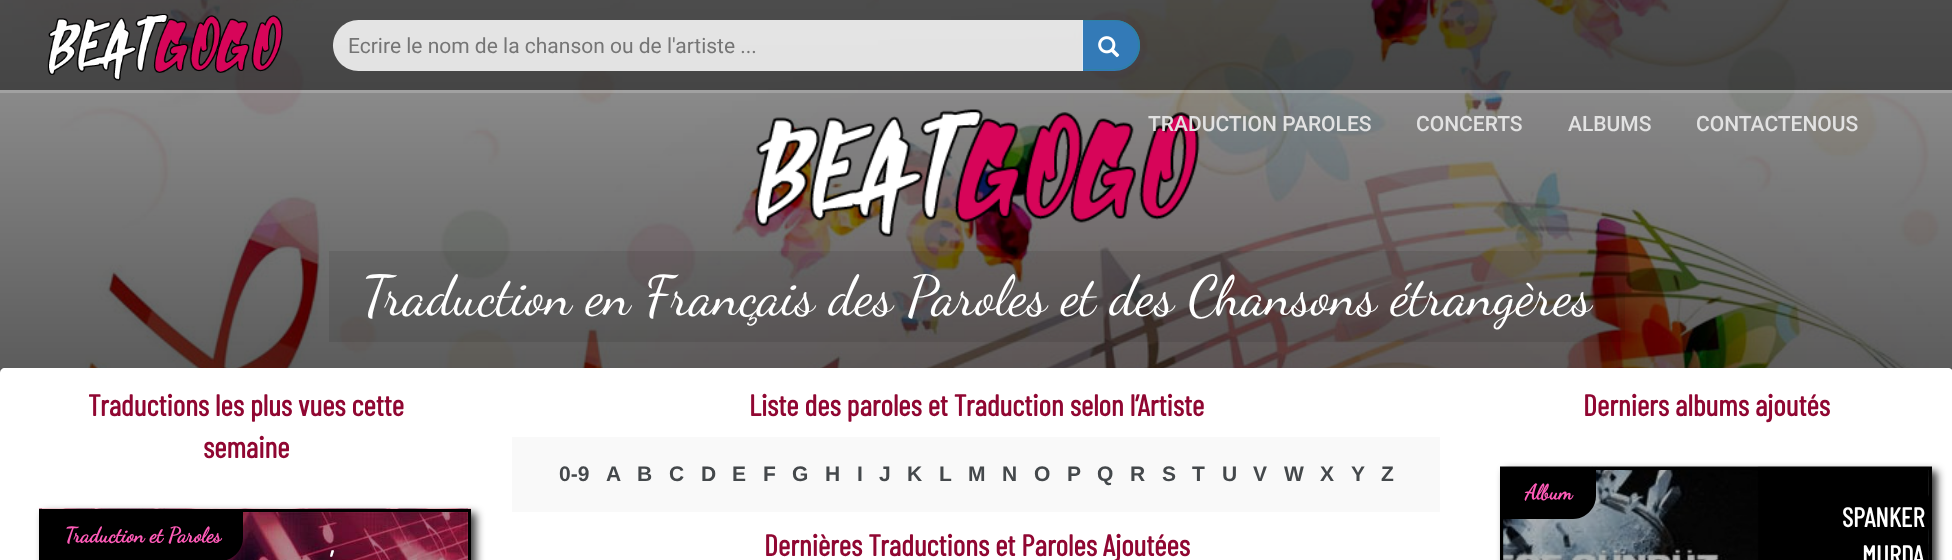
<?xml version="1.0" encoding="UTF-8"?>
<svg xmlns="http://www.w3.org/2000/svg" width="1952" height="560">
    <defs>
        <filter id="blur1" x="-50%" y="-200%" width="200%" height="500%"><feGaussianBlur stdDeviation="4"/></filter>
        <clipPath id="clip1"><rect x="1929" y="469" width="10" height="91"/></clipPath>
    </defs>
    <rect width="100%" height="100%" fill="#FFFFFF"/>
    <image x="0" y="0" width="1952" height="373" href="img_01.png"/>
    <rect x="0" y="0" width="1952" height="90" fill="#000000" fill-opacity="0.5"/>
    <image x="47" y="13" width="236" height="68" href="img_02.png"/>
    <path d="M 1082 20 H 1114.5 C 1128.5 20 1140 31.5 1140 45.5 C 1140 59.5 1128.5 71 1114.5 71 H 1082 Z" fill="#337AB7"/>
    <path d="M 1082 20 H 1114 C 1129 20 1140 31 1140 45 C 1140 59 1129 70 1114 70 H 1082 Z M 1082 21 H 1114 C 1128 21 1138 32 1138 45 C 1138 58 1128 69 1114 69 H 1082 Z" fill="#2E81A5" fill-rule="evenodd"/>
    <path d="M 358.5 20 H 1083 V 71 H 358.5 C 344.5 71 333 59.5 333 45.5 C 333 31.5 344.5 20 358.5 20 Z" fill="#FFFFFF" fill-opacity="0.85"/>
    <text x="348" y="53" font-family="Roboto" font-size="21" fill="#757575">Ecrire le nom de la chanson ou de l'artiste ...</text>
    <image x="1098" y="36" width="22" height="22" href="img_03.png"/>
    <image x="755" y="109" width="445" height="128" href="img_04.png"/>
    <text x="1148" y="131" font-family="Roboto" font-size="21" font-weight="500" fill="#E2E2E2">TRADUCTION PAROLES</text>
    <text x="1416" y="131" font-family="Roboto" font-size="21" font-weight="500" fill="#E2E2E2">CONCERTS</text>
    <text x="1568" y="131" font-family="Roboto" font-size="21" font-weight="500" fill="#E2E2E2">ALBUMS</text>
    <text x="1696" y="131" font-family="Roboto" font-size="21" font-weight="500" fill="#E2E2E2">CONTACTENOUS</text>
    <rect x="0" y="90" width="1952" height="3" fill="#FFFFFF" fill-opacity="0.2"/>
    <rect x="329" y="251" width="1296" height="91" fill="#000000" fill-opacity="0.09"/>
    <text x="362" y="314" font-family="Dancing Script" font-size="55.5" fill="#FFFFFF">Traduction en Français des Paroles et des Chansons étrangères</text>
    <path d="M 5 368 H 1948 C 1951 368 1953 370 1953 373 V 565 H 0 V 373 C 0 370 2 368 5 368 Z" fill="#FFFFFF"/>
    <text x="88" y="416" font-family="Barlow Condensed" font-size="30" font-weight="700" fill="#900732">Traductions les plus vues cette</text>
    <text x="203" y="458" font-family="Barlow Condensed" font-size="30" font-weight="700" fill="#900732">semaine</text>
    <rect x="44" y="513" width="432" height="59" fill="#000000" fill-opacity="0.75" filter="url(#blur1)"/>
    <image x="39" y="508" width="432" height="52" href="img_05.png"/>
    <rect x="40.5" y="510.5" width="429" height="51" fill="none" stroke="#000000" stroke-width="3"/>
    <path d="M 42 512 H 243 V 538 C 243 550.5 232.5 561 220 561 H 42 Z" fill="#000000"/>
    <text x="65" y="542" font-family="Dancing Script" font-size="21" font-weight="700" fill="#FF5BB8">Traduction et Paroles</text>
    <text x="330" y="570" font-family="Barlow Condensed" font-size="27" font-weight="700" fill="#FFFFFF">’</text>
    <text x="749" y="416" font-family="Barlow Condensed" font-size="30" font-weight="700" fill="#900732">Liste des paroles et Traduction selon l’Artiste</text>
    <rect x="512" y="437" width="928" height="75" fill="#F9F9F9"/>
    <text x="559" y="481" font-family="Liberation Sans" font-size="21" font-weight="700" fill="#44484B">0-9</text>
    <text x="606" y="481" font-family="Liberation Sans" font-size="21" font-weight="700" fill="#44484B">A</text>
    <text x="637" y="481" font-family="Liberation Sans" font-size="21" font-weight="700" fill="#44484B">B</text>
    <text x="669" y="481" font-family="Liberation Sans" font-size="21" font-weight="700" fill="#44484B">C</text>
    <text x="701" y="481" font-family="Liberation Sans" font-size="21" font-weight="700" fill="#44484B">D</text>
    <text x="732" y="481" font-family="Liberation Sans" font-size="21" font-weight="700" fill="#44484B">E</text>
    <text x="763" y="481" font-family="Liberation Sans" font-size="21" font-weight="700" fill="#44484B">F</text>
    <text x="792" y="481" font-family="Liberation Sans" font-size="21" font-weight="700" fill="#44484B">G</text>
    <text x="825" y="481" font-family="Liberation Sans" font-size="21" font-weight="700" fill="#44484B">H</text>
    <text x="857" y="481" font-family="Liberation Sans" font-size="21" font-weight="700" fill="#44484B">I</text>
    <text x="879" y="481" font-family="Liberation Sans" font-size="21" font-weight="700" fill="#44484B">J</text>
    <text x="907" y="481" font-family="Liberation Sans" font-size="21" font-weight="700" fill="#44484B">K</text>
    <text x="939" y="481" font-family="Liberation Sans" font-size="21" font-weight="700" fill="#44484B">L</text>
    <text x="968" y="481" font-family="Liberation Sans" font-size="21" font-weight="700" fill="#44484B">M</text>
    <text x="1002" y="481" font-family="Liberation Sans" font-size="21" font-weight="700" fill="#44484B">N</text>
    <text x="1034" y="481" font-family="Liberation Sans" font-size="21" font-weight="700" fill="#44484B">O</text>
    <text x="1067" y="481" font-family="Liberation Sans" font-size="21" font-weight="700" fill="#44484B">P</text>
    <text x="1097" y="481" font-family="Liberation Sans" font-size="21" font-weight="700" fill="#44484B">Q</text>
    <text x="1130" y="481" font-family="Liberation Sans" font-size="21" font-weight="700" fill="#44484B">R</text>
    <text x="1162" y="481" font-family="Liberation Sans" font-size="21" font-weight="700" fill="#44484B">S</text>
    <text x="1192" y="481" font-family="Liberation Sans" font-size="21" font-weight="700" fill="#44484B">T</text>
    <text x="1222" y="481" font-family="Liberation Sans" font-size="21" font-weight="700" fill="#44484B">U</text>
    <text x="1253" y="481" font-family="Liberation Sans" font-size="21" font-weight="700" fill="#44484B">V</text>
    <text x="1284" y="481" font-family="Liberation Sans" font-size="21" font-weight="700" fill="#44484B">W</text>
    <text x="1320" y="481" font-family="Liberation Sans" font-size="21" font-weight="700" fill="#44484B">X</text>
    <text x="1351" y="481" font-family="Liberation Sans" font-size="21" font-weight="700" fill="#44484B">Y</text>
    <text x="1381" y="481" font-family="Liberation Sans" font-size="21" font-weight="700" fill="#44484B">Z</text>
    <text x="764" y="556" font-family="Barlow Condensed" font-size="30" font-weight="700" fill="#900732">Dernières Traductions et Paroles Ajoutées</text>
    <text x="1583" y="416" font-family="Barlow Condensed" font-size="30" font-weight="700" fill="#900732">Derniers albums ajoutés</text>
    <rect x="1505" y="471" width="432" height="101" fill="#000000" fill-opacity="0.75" filter="url(#blur1)"/>
    <image x="1500" y="466" width="432" height="94" href="img_06.png"/>
    <rect x="1501.5" y="468.5" width="429" height="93" fill="none" stroke="#000000" stroke-width="3"/>
    <g clip-path="url(#clip1)">
        <rect x="1508" y="474" width="426" height="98" fill="#000000" fill-opacity="0.22" filter="url(#blur1)"/>
    </g>
    <path d="M 1503 470 H 1596 V 496 C 1596 508.5 1585.5 519 1573 519 H 1503 Z" fill="#000000"/>
    <text x="1525" y="499" font-family="Dancing Script" font-size="21" font-weight="700" fill="#FF5BB8">Album</text>
    <text x="1842" y="527" font-family="Barlow Condensed" font-size="27" font-weight="700" fill="#FFFFFF">SPANKER</text>
    <text x="1862" y="565" font-family="Barlow Condensed" font-size="27" font-weight="700" fill="#FFFFFF">MURDA</text>
</svg>
